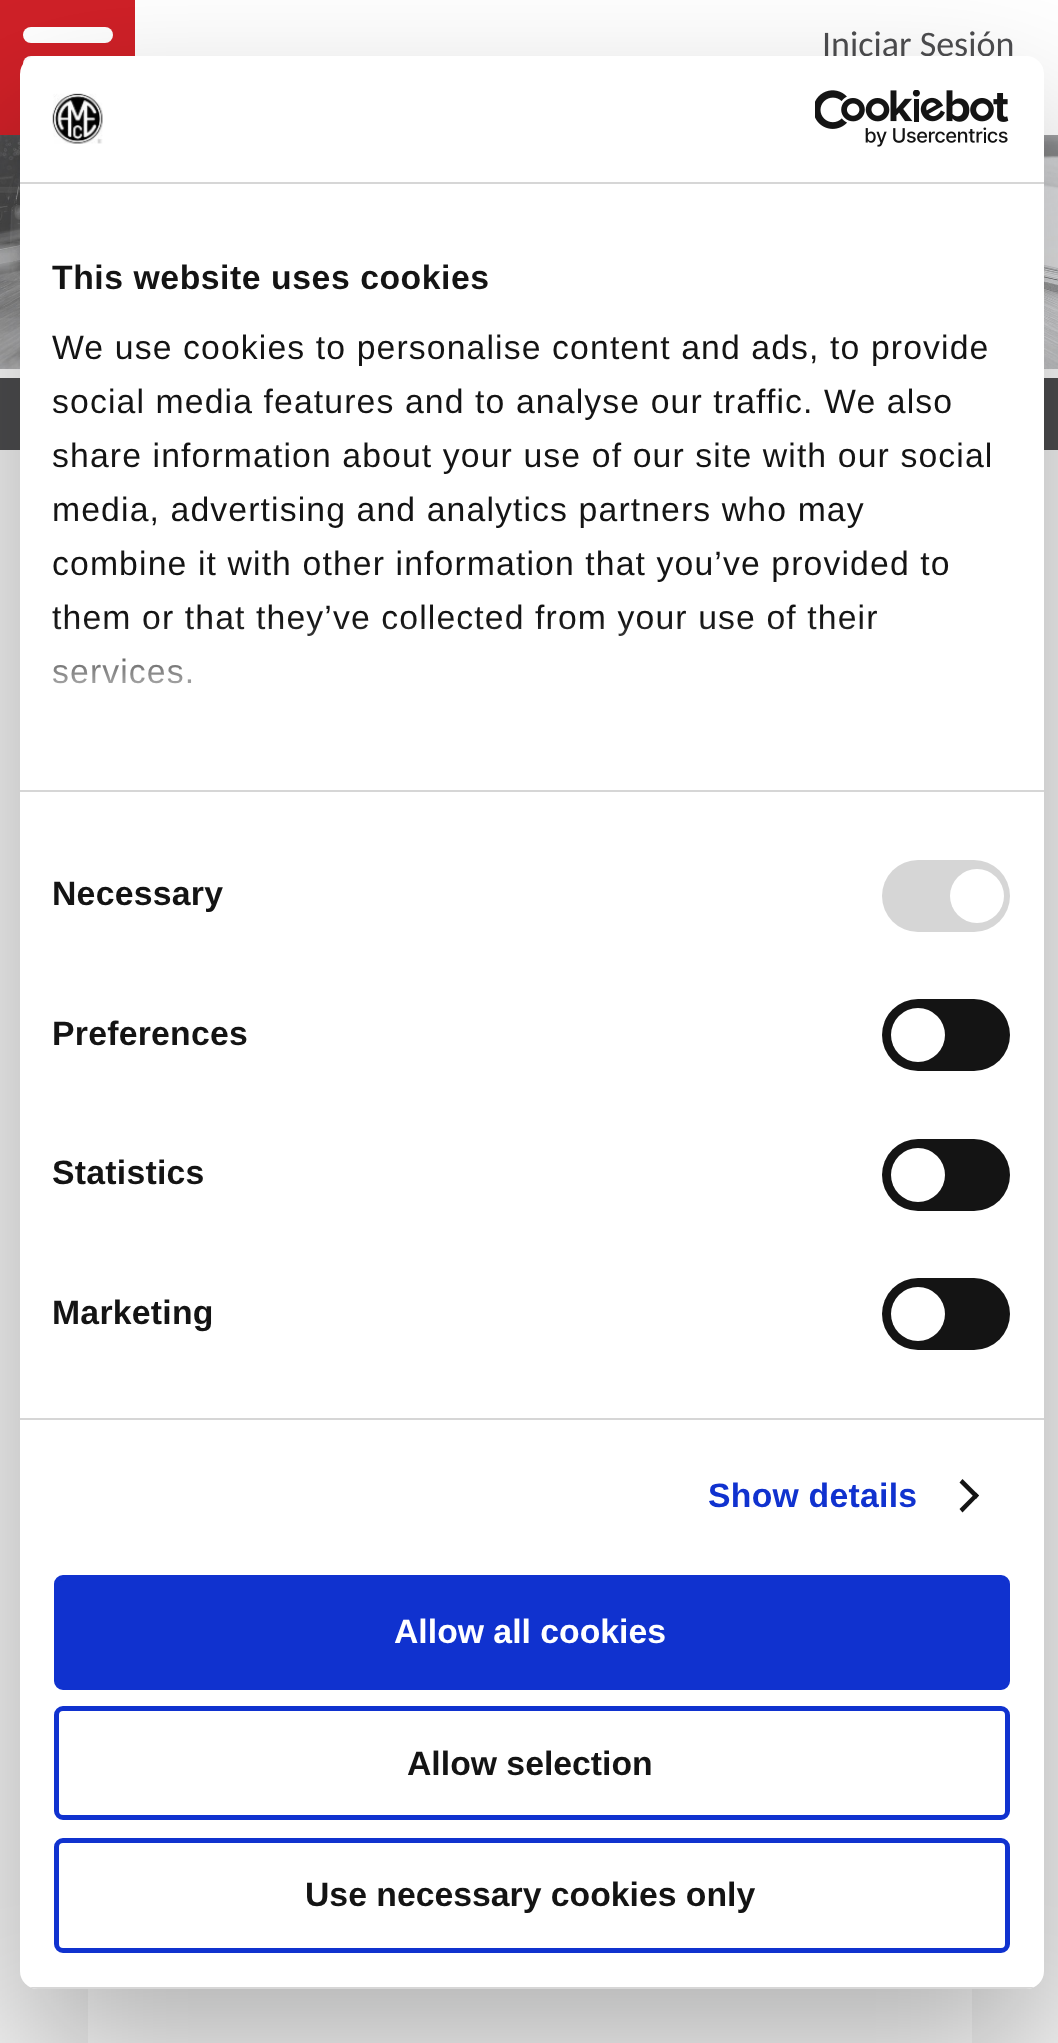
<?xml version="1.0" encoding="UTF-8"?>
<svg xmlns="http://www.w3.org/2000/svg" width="1058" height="2043">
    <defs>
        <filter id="blur1" x="-50%" y="-200%" width="200%" height="500%"><feGaussianBlur stdDeviation="76.5"/></filter>
        <linearGradient id="g1" gradientUnits="userSpaceOnUse" x1="516" y1="789" x2="516" y2="620"><stop offset="0" stop-color="#FFFFFF"/><stop offset="0.5" stop-color="#FFFFFF" stop-opacity="0.8"/><stop offset="1" stop-color="#FFFFFF" stop-opacity="0"/></linearGradient>
        <clipPath id="clip1"><rect x="20" y="56" width="1024" height="1933" rx="18"/></clipPath>
    </defs>
    <rect width="100%" height="100%" fill="#FFFFFF"/>
    <rect x="0" y="0" width="135" height="135" fill="#CF2027"/>
    <rect x="23" y="27" width="90" height="16" rx="8" fill="#FFFFFF"/>
    <rect x="23" y="56" width="90" height="16" rx="8" fill="#FFFFFF"/>
    <text x="822" y="56" font-family="Carlito" font-size="36" fill="#4D4D4F">Iniciar Sesión</text>
    <image x="0" y="135" width="1058" height="234" href="img_01.png"/>
    <rect x="0" y="378" width="1058" height="72" fill="#4D4D4F"/>
    <rect x="0" y="450" width="1058" height="1593" fill="#F5F5F5"/>
    <rect x="88" y="1989" width="884" height="54" fill="#FFFFFF"/>
    <rect x="20" y="128" width="1024" height="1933" rx="18" fill="#000000" fill-opacity="0.3" filter="url(#blur1)"/>
    <rect x="20" y="56" width="1024" height="1933" rx="18" fill="#FFFFFF"/>
    <rect x="20" y="182" width="1024" height="2" fill="#D6D6D6"/>
    <image x="52" y="93" width="51" height="51" href="img_02.png"/>
    <image x="815" y="90" width="194" height="57" href="img_03.png"/>
    <rect x="20" y="790" width="1024" height="2" fill="#D6D6D6"/>
    <text x="52" y="289" font-family="Liberation Sans" font-size="33.75" font-weight="700" letter-spacing="0.55" fill="#141414">This website uses cookies</text>
    <text font-family="Liberation Sans" font-size="33.75" letter-spacing="1.12" fill="#141414">
        <tspan x="52" y="359">We use cookies to personalise content and ads, to provide</tspan>
        <tspan x="52" y="413">social media features and to analyse our traffic. We also</tspan>
        <tspan x="52" y="467">share information about your use of our site with our social</tspan>
        <tspan x="52" y="521">media, advertising and analytics partners who may</tspan>
        <tspan x="52" y="575">combine it with other information that you’ve provided to</tspan>
        <tspan x="52" y="629">them or that they’ve collected from your use of their</tspan>
        <tspan x="52" y="683">services.</tspan>
    </text>
    <rect x="52" y="622" width="820" height="62" fill="url(#g1)"/>
    <rect x="20" y="1418" width="1024" height="2" fill="#D6D6D6"/>
    <text x="52" y="905" font-family="Liberation Sans" font-size="33.75" font-weight="700" letter-spacing="0.25" fill="#141414">Necessary</text>
    <rect x="882" y="860" width="128" height="72" rx="36" fill="#D6D6D6"/>
    <circle cx="977" cy="896" r="27" fill="#FFFFFF"/>
    <text x="52" y="1045" font-family="Liberation Sans" font-size="33.75" font-weight="700" letter-spacing="0.25" fill="#141414">Preferences</text>
    <rect x="882" y="999" width="128" height="72" rx="36" fill="#141414"/>
    <circle cx="918" cy="1035" r="27" fill="#FFFFFF"/>
    <text x="52" y="1184" font-family="Liberation Sans" font-size="33.75" font-weight="700" letter-spacing="0.25" fill="#141414">Statistics</text>
    <rect x="882" y="1139" width="128" height="72" rx="36" fill="#141414"/>
    <circle cx="918" cy="1175" r="27" fill="#FFFFFF"/>
    <text x="52" y="1324" font-family="Liberation Sans" font-size="33.75" font-weight="700" letter-spacing="0.25" fill="#141414">Marketing</text>
    <rect x="882" y="1278" width="128" height="72" rx="36" fill="#141414"/>
    <circle cx="918" cy="1314" r="27" fill="#FFFFFF"/>
    <text x="708" y="1507" font-family="Liberation Sans" font-size="33.75" font-weight="700" letter-spacing="0.25" fill="#1032CF">Show details</text>
    <path d="M 962.5 1479 L 979 1495.5 L 976 1499 L 959.5 1482.5 Z" fill="#141414"/>
    <path d="M 976 1492.5 L 979 1495.5 L 962.5 1512.5 L 959.5 1509 Z" fill="#141414"/>
    <g clip-path="url(#clip1)">
        <rect x="30" y="1987" width="1004" height="2" fill="#D6D6D6"/>
    </g>
    <rect x="56.5" y="1577.5" width="951" height="110" rx="6.5" fill="#1032CF" stroke="#1032CF" stroke-width="5"/>
    <text x="394" y="1643" font-family="Liberation Sans" font-size="33.75" font-weight="700" fill="#FFFFFF">Allow all cookies</text>
    <rect x="56.5" y="1708.5" width="951" height="109" rx="6.5" fill="none" stroke="#1032CF" stroke-width="5"/>
    <text x="407" y="1775" font-family="Liberation Sans" font-size="33.75" font-weight="700" fill="#141414">Allow selection</text>
    <rect x="56.5" y="1840.5" width="951" height="110" rx="6.5" fill="none" stroke="#1032CF" stroke-width="5"/>
    <text x="305" y="1906" font-family="Liberation Sans" font-size="33.75" font-weight="700" fill="#141414">Use necessary cookies only</text>
</svg>
